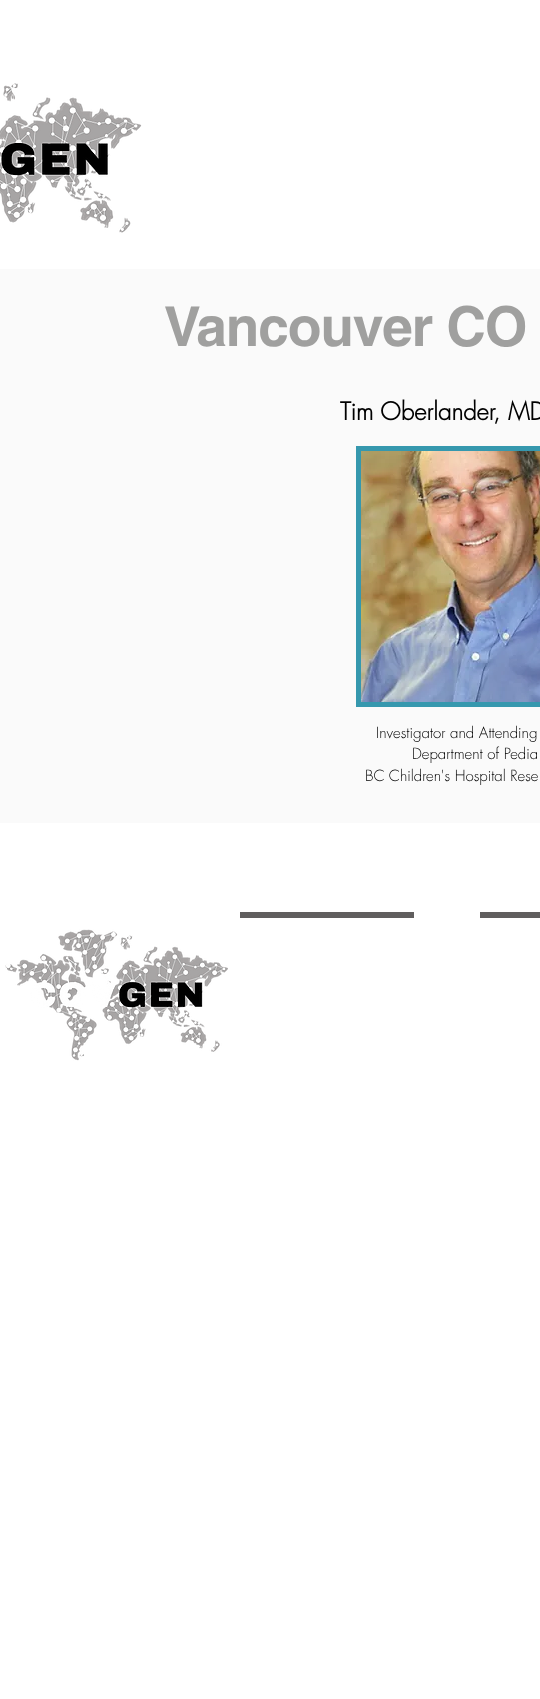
<?xml version="1.0" encoding="UTF-8"?>
<svg xmlns="http://www.w3.org/2000/svg" width="540" height="1699">
    <rect width="100%" height="100%" fill="#FFFFFF"/>
    <image x="0" y="83" width="142" height="150" href="img_01.png"/>
    <rect x="0" y="269" width="540" height="554" fill="#FAFAFA"/>
    <text x="164" y="346" font-family="helvetica" font-size="55" font-weight="700" letter-spacing="-1.1" fill="#A0A09F">Vancouver CO</text>
    <text x="340" y="420" font-family="futura" font-size="24" font-weight="700" fill="#000000">Tim Oberlander, MD</text>
    <rect x="358.5" y="448.5" width="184" height="256" fill="none" stroke="#3698AE" stroke-width="5"/>
    <image x="361" y="451" width="179" height="251" href="img_02.png"/>
    <text x="376" y="738" font-family="futura" font-size="15" font-weight="300" fill="#000000">Investigator and Attending</text>
    <text x="412" y="759" font-family="futura" font-size="15" font-weight="300" fill="#000000">Department of Pedia</text>
    <text x="365" y="781" font-family="futura" font-size="15" font-weight="300" fill="#000000">BC Children's Hospital Rese</text>
    <rect x="240" y="912" width="174" height="6" fill="#605E5E"/>
    <rect x="480" y="912" width="60" height="6" fill="#605E5E"/>
    <image x="5" y="929" width="223" height="132" href="img_03.png"/>
</svg>
